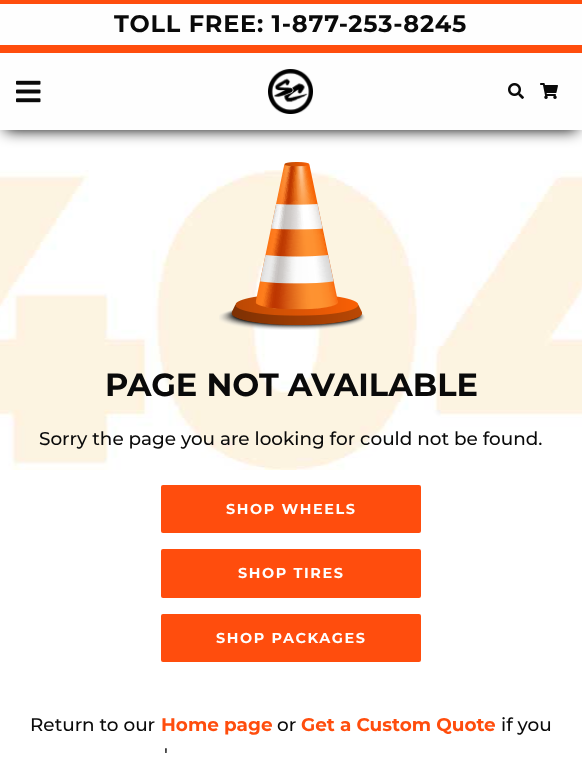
<?xml version="1.0" encoding="UTF-8"?>
<svg xmlns="http://www.w3.org/2000/svg" width="582" height="757">
    <defs>
        <filter id="blur1" x="-50%" y="-200%" width="200%" height="500%"><feGaussianBlur stdDeviation="7.5"/></filter>
    </defs>
    <rect width="100%" height="100%" fill="#FFFFFF"/>
    <rect x="5" y="10" width="572" height="120" fill="#000000" filter="url(#blur1)"/>
    <rect x="0" y="0" width="582" height="53" fill="#FF4D0D"/>
    <rect x="0" y="4" width="582" height="41" fill="#FEFEFE"/>
    <text x="114" y="32" font-family="Montserrat" font-size="24" font-weight="700" letter-spacing="0.8" fill="#0A0A0A">TOLL FREE: 1-877-253-8245</text>
    <rect x="0" y="53" width="582" height="77" fill="#FEFEFE"/>
    <image x="16" y="80" width="25" height="23" href="img_01.png"/>
    <image x="268" y="69" width="45" height="45" href="img_02.png"/>
    <image x="508" y="83" width="16" height="16" href="img_03.png"/>
    <image x="540" y="83" width="18" height="16" href="img_04.png"/>
    <image x="0" y="170" width="582" height="300" href="img_05.png"/>
    <image x="219" y="162" width="146" height="168" href="img_06.png"/>
    <text x="105" y="396" font-family="Montserrat" font-size="32" font-weight="700" fill="#0A0A0A">PAGE NOT AVAILABLE</text>
    <text x="39" y="445" font-family="Montserrat" font-size="18.4" font-weight="500" fill="#0A0A0A">Sorry the page you are looking for could not be found.</text>
    <rect x="161" y="485" width="260" height="48" rx="2" fill="#FF4D0D"/>
    <text x="226" y="514" font-family="Montserrat" font-size="14.4" font-weight="700" letter-spacing="1.6" fill="#FEFEFE">SHOP WHEELS</text>
    <rect x="161" y="549" width="260" height="49" rx="2" fill="#FF4D0D"/>
    <text x="238" y="578" font-family="Montserrat" font-size="14.4" font-weight="700" letter-spacing="1.6" fill="#FEFEFE">SHOP TIRES</text>
    <rect x="161" y="614" width="260" height="48" rx="2" fill="#FF4D0D"/>
    <text x="216" y="643" font-family="Montserrat" font-size="14.4" font-weight="700" letter-spacing="1.6" fill="#FEFEFE">SHOP PACKAGES</text>
    <text x="30" y="731" font-family="Montserrat" font-size="18.4" font-weight="500" fill="#0A0A0A">Return to our</text>
    <text x="161" y="731" font-family="Montserrat" font-size="18.4" font-weight="700" fill="#FF4D0D">Home page</text>
    <text x="277" y="731" font-family="Montserrat" font-size="18.4" font-weight="500" fill="#0A0A0A">or</text>
    <text x="301" y="731" font-family="Montserrat" font-size="18.4" font-weight="700" fill="#FF4D0D">Get a Custom Quote</text>
    <text x="501" y="731" font-family="Montserrat" font-size="18.4" font-weight="500" fill="#0A0A0A">if you</text>
    <text x="164" y="761" font-family="Montserrat" font-size="18.4" font-weight="500" fill="#0A0A0A">'</text>
</svg>
